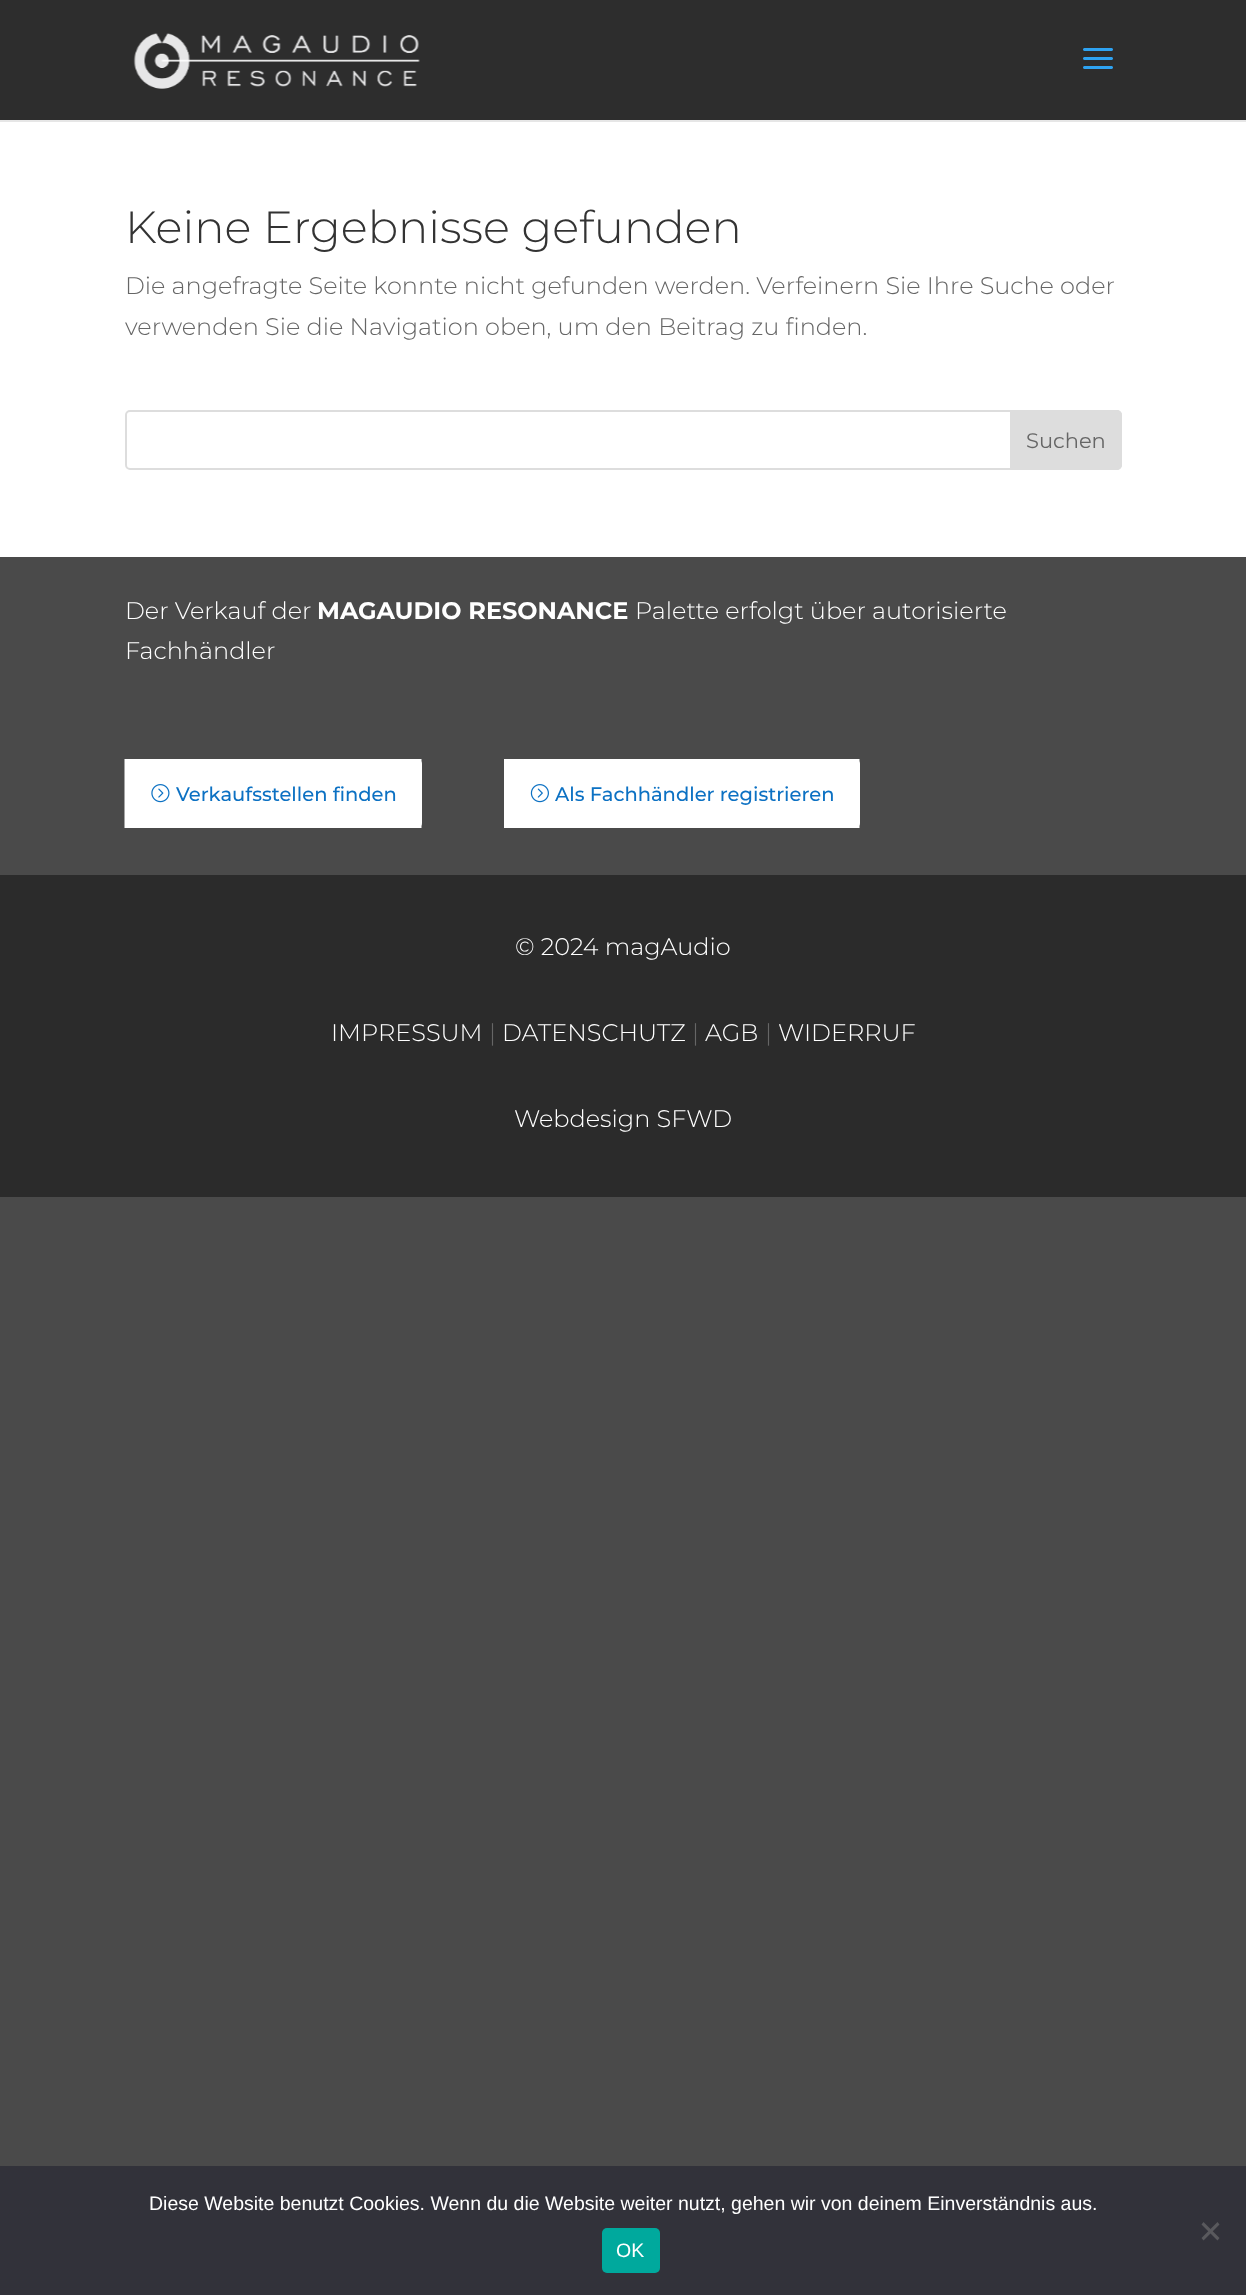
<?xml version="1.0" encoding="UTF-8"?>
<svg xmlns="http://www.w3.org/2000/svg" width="1246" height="2295">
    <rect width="100%" height="100%" fill="#4A4A4A"/>
    <path d="M 0 120 V 122 H 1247 V 2 H 1246 V 120 Z" fill="#E6E6E6"/>
    <rect x="0" y="0" width="1246" height="120" fill="#2D2D2D"/>
    <image x="133" y="33" width="287" height="56" href="img_01.png"/>
    <image x="1083" y="48" width="30" height="21" href="img_02.png"/>
    <rect x="0" y="122" width="1246" height="435" fill="#FFFFFF"/>
    <text x="125" y="243" font-family="Montserrat" font-size="45" font-weight="300" fill="#333333">Keine Ergebnisse gefunden</text>
    <text font-family="Montserrat" font-size="24" font-weight="300" fill="#666666">
        <tspan x="125" y="294">Die angefragte Seite konnte nicht gefunden werden. Verfeinern Sie Ihre Suche oder</tspan>
        <tspan x="125" y="335">verwenden Sie die Navigation oben, um den Beitrag zu finden.</tspan>
    </text>
    <rect x="126" y="411" width="995" height="58" rx="4" fill="none" stroke="#DDDDDD" stroke-width="2"/>
    <path d="M 1011 411 H 1117 C 1119 411 1121 413 1121 415 V 465 C 1121 467 1119 469 1117 469 H 1011 Z" fill="#DDDDDD" stroke="#DDDDDD" stroke-width="2"/>
    <text x="1026" y="448" font-family="Montserrat" font-size="21" fill="#666666">Suchen</text>
    <text x="125" y="619" font-family="Montserrat" font-size="24" font-weight="300" fill="#FFFFFF">Der Verkauf der</text>
    <text x="317" y="619" font-family="Montserrat" font-size="24" font-weight="700" fill="#FFFFFF">MAGAUDIO RESONANCE</text>
    <text x="635" y="619" font-family="Montserrat" font-size="24" font-weight="300" fill="#FFFFFF">Palette erfolgt über autorisierte</text>
    <text x="125" y="659" font-family="Montserrat" font-size="24" font-weight="300" fill="#FFFFFF">Fachhändler</text>
    <rect x="125" y="759" width="297" height="69" rx="5" fill="#FFFFFF"/>
    <path d="M 130.5 765 H 415.5 V 822 H 130.5 Z" fill="none" stroke="#FFFFFF" stroke-width="12"/>
    <image x="151" y="784" width="19" height="19" href="img_03.png"/>
    <text x="176" y="801" font-family="Montserrat" font-size="19.5" font-weight="500" fill="#0C71C3">Verkaufsstellen finden</text>
    <rect x="504" y="759" width="356" height="69" rx="5" fill="#FFFFFF"/>
    <path d="M 510 765 H 853.5 V 822 H 510 Z" fill="none" stroke="#FFFFFF" stroke-width="12"/>
    <image x="530" y="784" width="19" height="19" href="img_04.png"/>
    <text x="555" y="801" font-family="Montserrat" font-size="19.5" font-weight="500" fill="#0C71C3">Als Fachhändler registrieren</text>
    <rect x="0" y="875" width="1246" height="322" fill="#2B2B2B"/>
    <text x="515" y="955" font-family="Montserrat" font-size="24" font-weight="300" fill="#FFFFFF">© 2024 magAudio</text>
    <text x="331" y="1041" font-family="Montserrat" font-size="24" font-weight="300" fill="#FFFFFF">IMPRESSUM</text>
    <text x="489" y="1041" font-family="Montserrat" font-size="24" font-weight="300" fill="#666666">|</text>
    <text x="502" y="1041" font-family="Montserrat" font-size="24" font-weight="300" fill="#FFFFFF">DATENSCHUTZ</text>
    <text x="692" y="1041" font-family="Montserrat" font-size="24" font-weight="300" fill="#666666">|</text>
    <text x="705" y="1041" font-family="Montserrat" font-size="24" font-weight="300" fill="#FFFFFF">AGB</text>
    <text x="765" y="1041" font-family="Montserrat" font-size="24" font-weight="300" fill="#666666">|</text>
    <text x="778" y="1041" font-family="Montserrat" font-size="24" font-weight="300" fill="#FFFFFF">WIDERRUF</text>
    <text x="514" y="1127" font-family="Montserrat" font-size="24" font-weight="300" fill="#FFFFFF">Webdesign SFWD</text>
    <rect x="0" y="2166" width="1246" height="129" fill="#32323A"/>
    <text x="149" y="2210" font-family="Liberation Sans" font-size="19.5" fill="#FFFFFF">Diese Website benutzt Cookies. Wenn du die Website weiter nutzt, gehen wir von deinem Einverständnis aus.</text>
    <path d="M 1217.5 2222 L 1219.5 2224.5 L 1203.5 2240.5 L 1201.5 2238 Z" fill="#59595D"/>
    <path d="M 1201.5 2224.5 L 1203.5 2222 L 1219.5 2238 L 1217.5 2240.5 Z" fill="#59595D"/>
    <rect x="602" y="2228" width="58" height="45" rx="5" fill="#00A99D"/>
    <text x="616" y="2257" font-family="Liberation Sans" font-size="19.5" fill="#FFFFFF">OK</text>
</svg>
